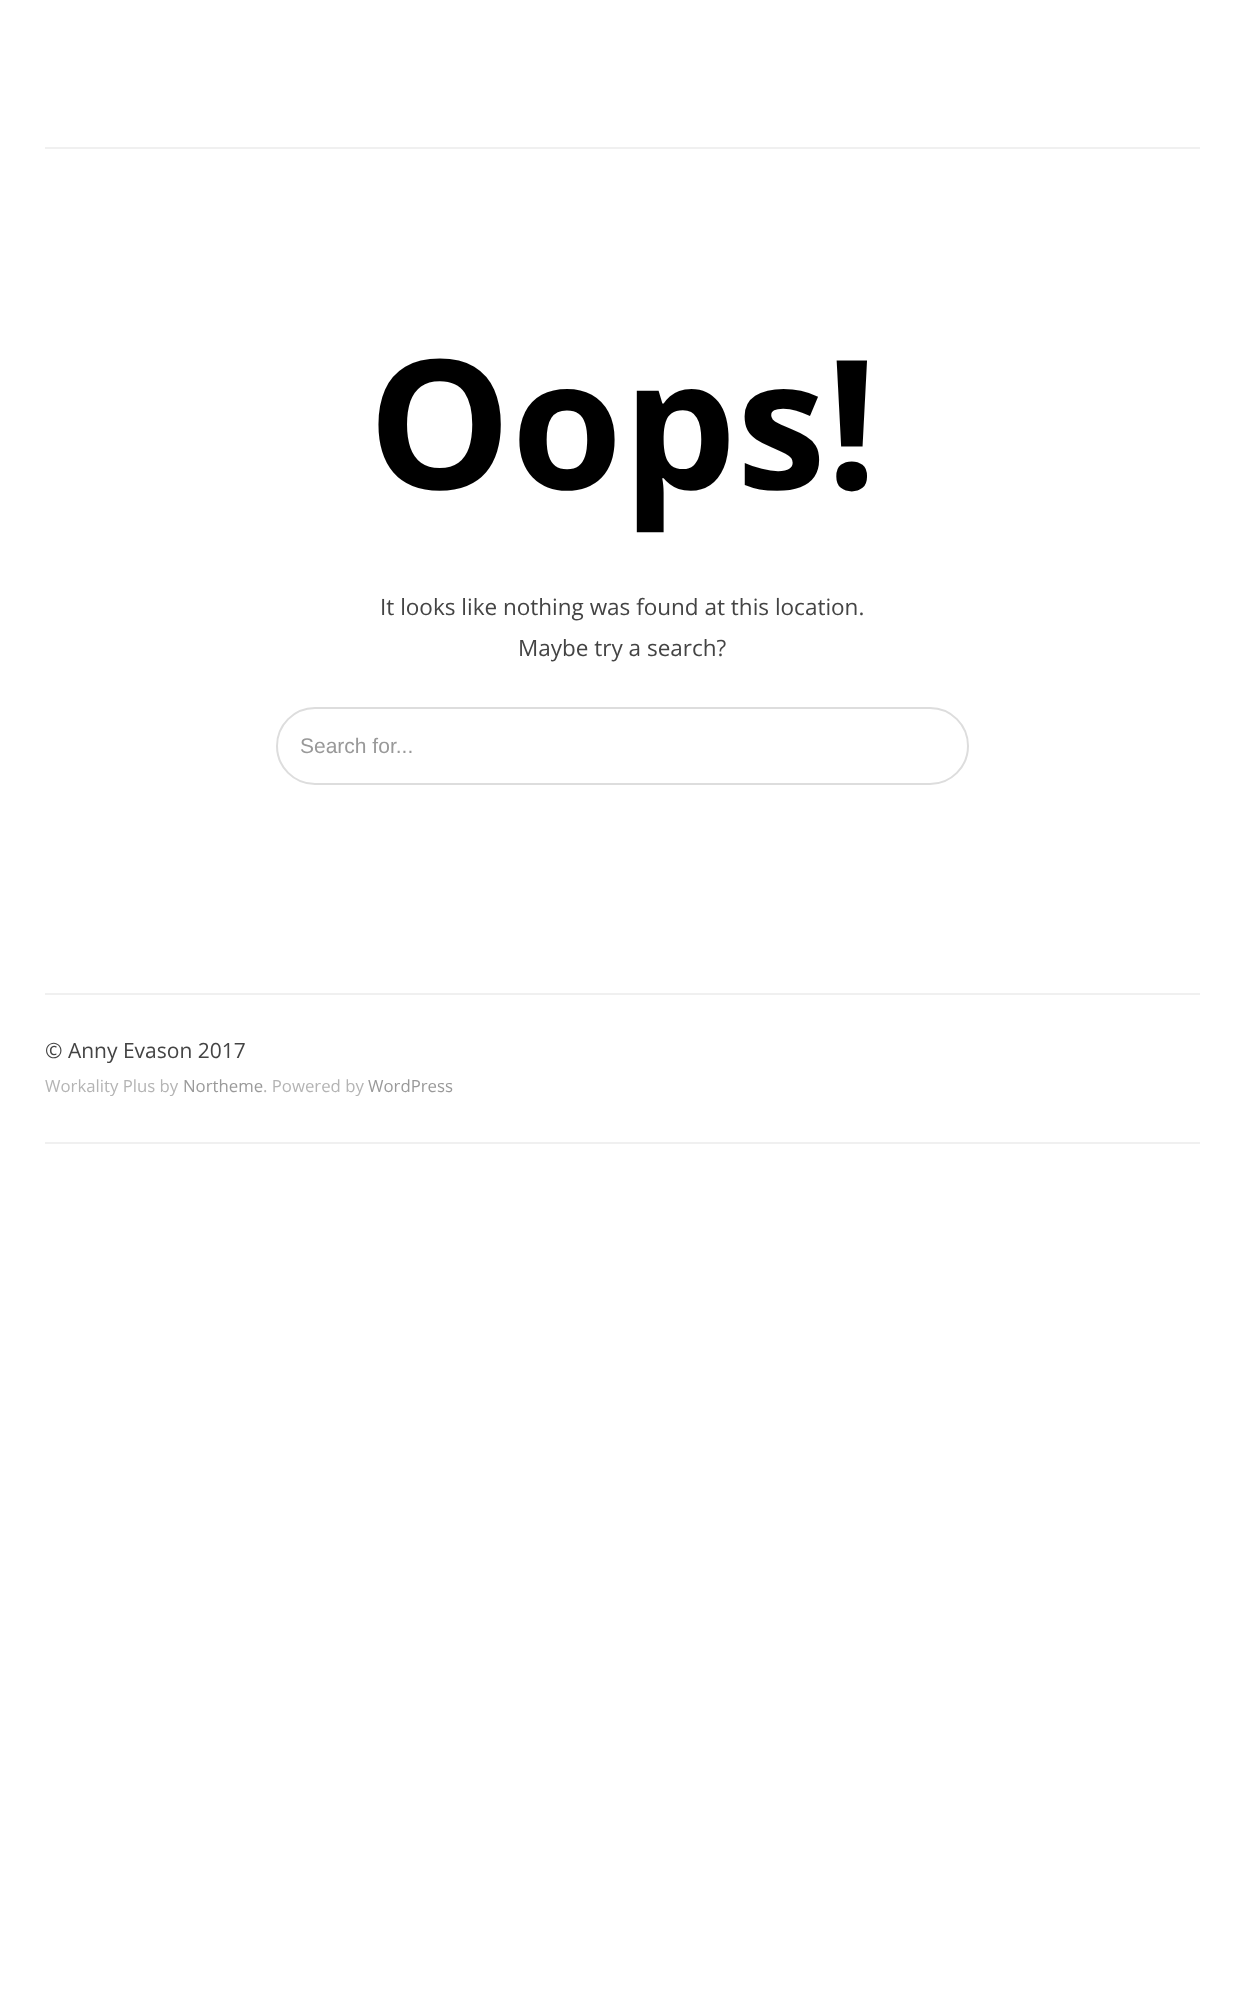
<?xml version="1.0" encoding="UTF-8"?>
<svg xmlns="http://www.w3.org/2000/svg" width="1245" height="1989">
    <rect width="100%" height="100%" fill="#FFFFFF"/>
    <rect x="45" y="147" width="1155" height="2" fill="#F0F0F0"/>
    <text x="368" y="489" font-family="Open Sans" font-size="180" font-weight="700" fill="#000000">Oops!</text>
    <text x="380" y="615" font-family="Open Sans" font-size="22.5" fill="#444444">It looks like nothing was found at this location.</text>
    <text x="518" y="656" font-family="Open Sans" font-size="22.5" fill="#444444">Maybe try a search?</text>
    <rect x="277" y="708" width="691" height="76" rx="38" fill="none" stroke="#DDDDDD" stroke-width="2"/>
    <text x="300" y="753" font-family="Liberation Sans" font-size="21" fill="#999999">Search for...</text>
    <rect x="45" y="993" width="1155" height="2" fill="#F0F0F0"/>
    <rect x="45" y="1142" width="1155" height="2" fill="#F0F0F0"/>
    <text x="45" y="1058" font-family="Open Sans" font-size="21" fill="#444444">© Anny Evason 2017</text>
    <text x="45" y="1092" font-family="Open Sans" font-size="16.75" fill="#B4B4B4">Workality Plus by</text>
    <text x="183" y="1092" font-family="Open Sans" font-size="16.75" fill="#999999">Northeme</text>
    <text x="263" y="1092" font-family="Open Sans" font-size="16.75" fill="#B4B4B4">. Powered by</text>
    <text x="368" y="1092" font-family="Open Sans" font-size="16.75" fill="#999999">WordPress</text>
</svg>
